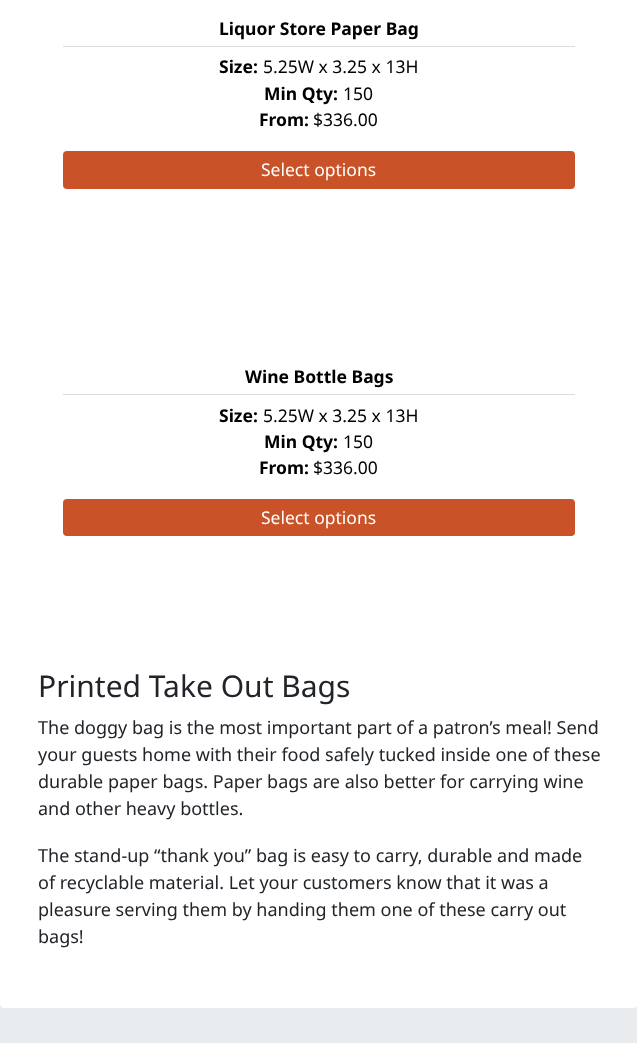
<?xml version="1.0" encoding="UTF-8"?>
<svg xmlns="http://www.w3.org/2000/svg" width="637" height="1043">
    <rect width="100%" height="100%" fill="#E9ECEF"/>
    <path d="M 0 -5 H 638 V 1003 C 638 1006 636 1008 633 1008 H 5 C 2 1008 0 1006 0 1003 Z" fill="#FFFFFF"/>
    <rect x="63" y="46" width="512" height="1" fill="#DDDBDC"/>
    <text x="219" y="35" font-family="Noto Sans" font-size="17.5" font-weight="700" fill="#000000">Liquor Store Paper Bag</text>
    <text x="219" y="73" font-family="Noto Sans" font-size="17.5" font-weight="700" fill="#000000">Size:</text>
    <text x="263" y="73" font-family="Noto Sans" font-size="17.5" fill="#000000">5.25W x 3.25 x 13H</text>
    <text x="264" y="100" font-family="Noto Sans" font-size="17.5" font-weight="700" fill="#000000">Min Qty:</text>
    <text x="343" y="100" font-family="Noto Sans" font-size="17.5" fill="#000000">150</text>
    <text x="259" y="126" font-family="Noto Sans" font-size="17.5" font-weight="700" fill="#000000">From:</text>
    <text x="313" y="126" font-family="Noto Sans" font-size="17.5" fill="#000000">$336.00</text>
    <rect x="63" y="151" width="512" height="38" rx="4" fill="#C95228"/>
    <text x="261" y="176" font-family="Noto Sans" font-size="17.5" fill="#FFFFFF">Select options</text>
    <rect x="63" y="394" width="512" height="1" fill="#DDDBDC"/>
    <text x="245" y="383" font-family="Noto Sans" font-size="17.5" font-weight="700" fill="#000000">Wine Bottle Bags</text>
    <text x="219" y="422" font-family="Noto Sans" font-size="17.5" font-weight="700" fill="#000000">Size:</text>
    <text x="263" y="422" font-family="Noto Sans" font-size="17.5" fill="#000000">5.25W x 3.25 x 13H</text>
    <text x="264" y="448" font-family="Noto Sans" font-size="17.5" font-weight="700" fill="#000000">Min Qty:</text>
    <text x="343" y="448" font-family="Noto Sans" font-size="17.5" fill="#000000">150</text>
    <text x="259" y="474" font-family="Noto Sans" font-size="17.5" font-weight="700" fill="#000000">From:</text>
    <text x="313" y="474" font-family="Noto Sans" font-size="17.5" fill="#000000">$336.00</text>
    <rect x="63" y="499" width="512" height="37" rx="4" fill="#C95228"/>
    <text x="261" y="524" font-family="Noto Sans" font-size="17.5" fill="#FFFFFF">Select options</text>
    <text x="38" y="697" font-family="Noto Sans" font-size="30" fill="#212529">Printed Take Out Bags</text>
    <text font-family="Noto Sans" font-size="18" fill="#212529">
        <tspan x="38" y="734">The doggy bag is the most important part of a patron’s meal! Send</tspan>
        <tspan x="38" y="761">your guests home with their food safely tucked inside one of these</tspan>
        <tspan x="38" y="788">durable paper bags. Paper bags are also better for carrying wine</tspan>
        <tspan x="38" y="815">and other heavy bottles.</tspan>
    </text>
    <text font-family="Noto Sans" font-size="18" fill="#212529">
        <tspan x="38" y="862">The stand-up “thank you” bag is easy to carry, durable and made</tspan>
        <tspan x="38" y="889">of recyclable material. Let your customers know that it was a</tspan>
        <tspan x="38" y="916">pleasure serving them by handing them one of these carry out</tspan>
        <tspan x="38" y="943">bags!</tspan>
    </text>
</svg>
